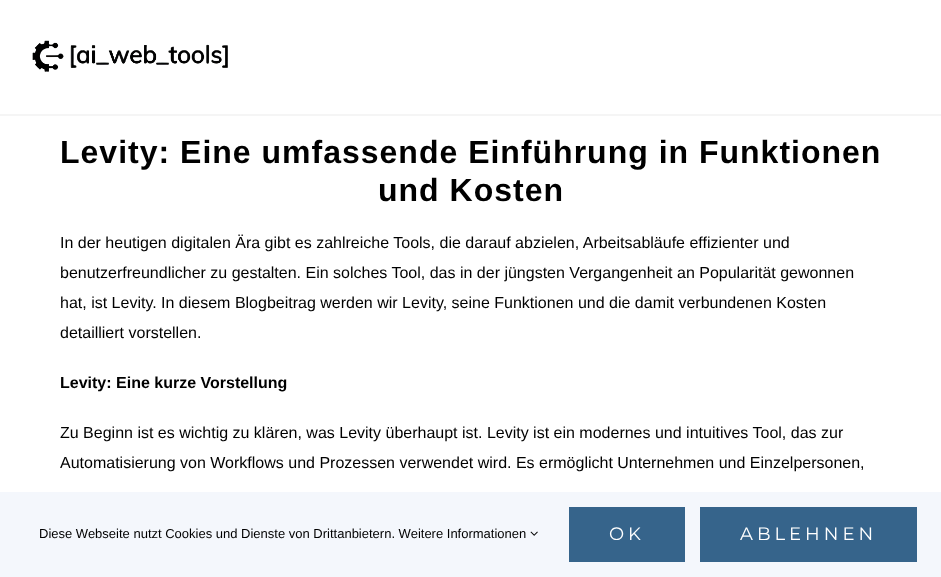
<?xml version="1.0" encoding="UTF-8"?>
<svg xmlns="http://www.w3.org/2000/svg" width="941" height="577">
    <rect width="100%" height="100%" fill="#FFFFFF"/>
    <rect x="0" y="114" width="941" height="2" fill="#F5F5F5"/>
    <image x="32" y="40" width="196" height="32" href="img_01.png"/>
    <text x="60" y="163" font-family="Liberation Sans" font-size="32" font-weight="700" letter-spacing="1" fill="#000000">Levity: Eine umfassende Einführung in Funktionen</text>
    <text x="378" y="201" font-family="Liberation Sans" font-size="32" font-weight="700" letter-spacing="1" fill="#000000">und Kosten</text>
    <text font-family="Liberation Sans" font-size="16" fill="#000000">
        <tspan x="60" y="248">In der heutigen digitalen Ära gibt es zahlreiche Tools, die darauf abzielen, Arbeitsabläufe effizienter und</tspan>
        <tspan x="60" y="278">benutzerfreundlicher zu gestalten. Ein solches Tool, das in der jüngsten Vergangenheit an Popularität gewonnen</tspan>
        <tspan x="60" y="308">hat, ist Levity. In diesem Blogbeitrag werden wir Levity, seine Funktionen und die damit verbundenen Kosten</tspan>
        <tspan x="60" y="338">detailliert vorstellen.</tspan>
    </text>
    <text x="60" y="388" font-family="Liberation Sans" font-size="16" font-weight="700" fill="#000000">Levity: Eine kurze Vorstellung</text>
    <text font-family="Liberation Sans" font-size="16" fill="#000000">
        <tspan x="60" y="438">Zu Beginn ist es wichtig zu klären, was Levity überhaupt ist. Levity ist ein modernes und intuitives Tool, das zur</tspan>
        <tspan x="60" y="468">Automatisierung von Workflows und Prozessen verwendet wird. Es ermöglicht Unternehmen und Einzelpersonen,</tspan>
    </text>
    <rect x="0" y="492" width="941" height="85" fill="#F4F7FC"/>
    <text x="39" y="538" font-family="Liberation Sans" font-size="13" fill="#000000">Diese Webseite nutzt Cookies und Dienste von Drittanbietern. Weitere Informationen</text>
    <image x="530" y="531" width="8" height="5" href="img_02.png"/>
    <rect x="569" y="507" width="116" height="55" fill="#36648B"/>
    <text x="609" y="540" font-family="Montserrat" font-size="18" font-weight="100" letter-spacing="4" fill="#FFFFFF">OK</text>
    <rect x="700" y="507" width="217" height="55" fill="#36648B"/>
    <text x="740" y="540" font-family="Montserrat" font-size="18" font-weight="100" letter-spacing="4" fill="#FFFFFF">ABLEHNEN</text>
</svg>
